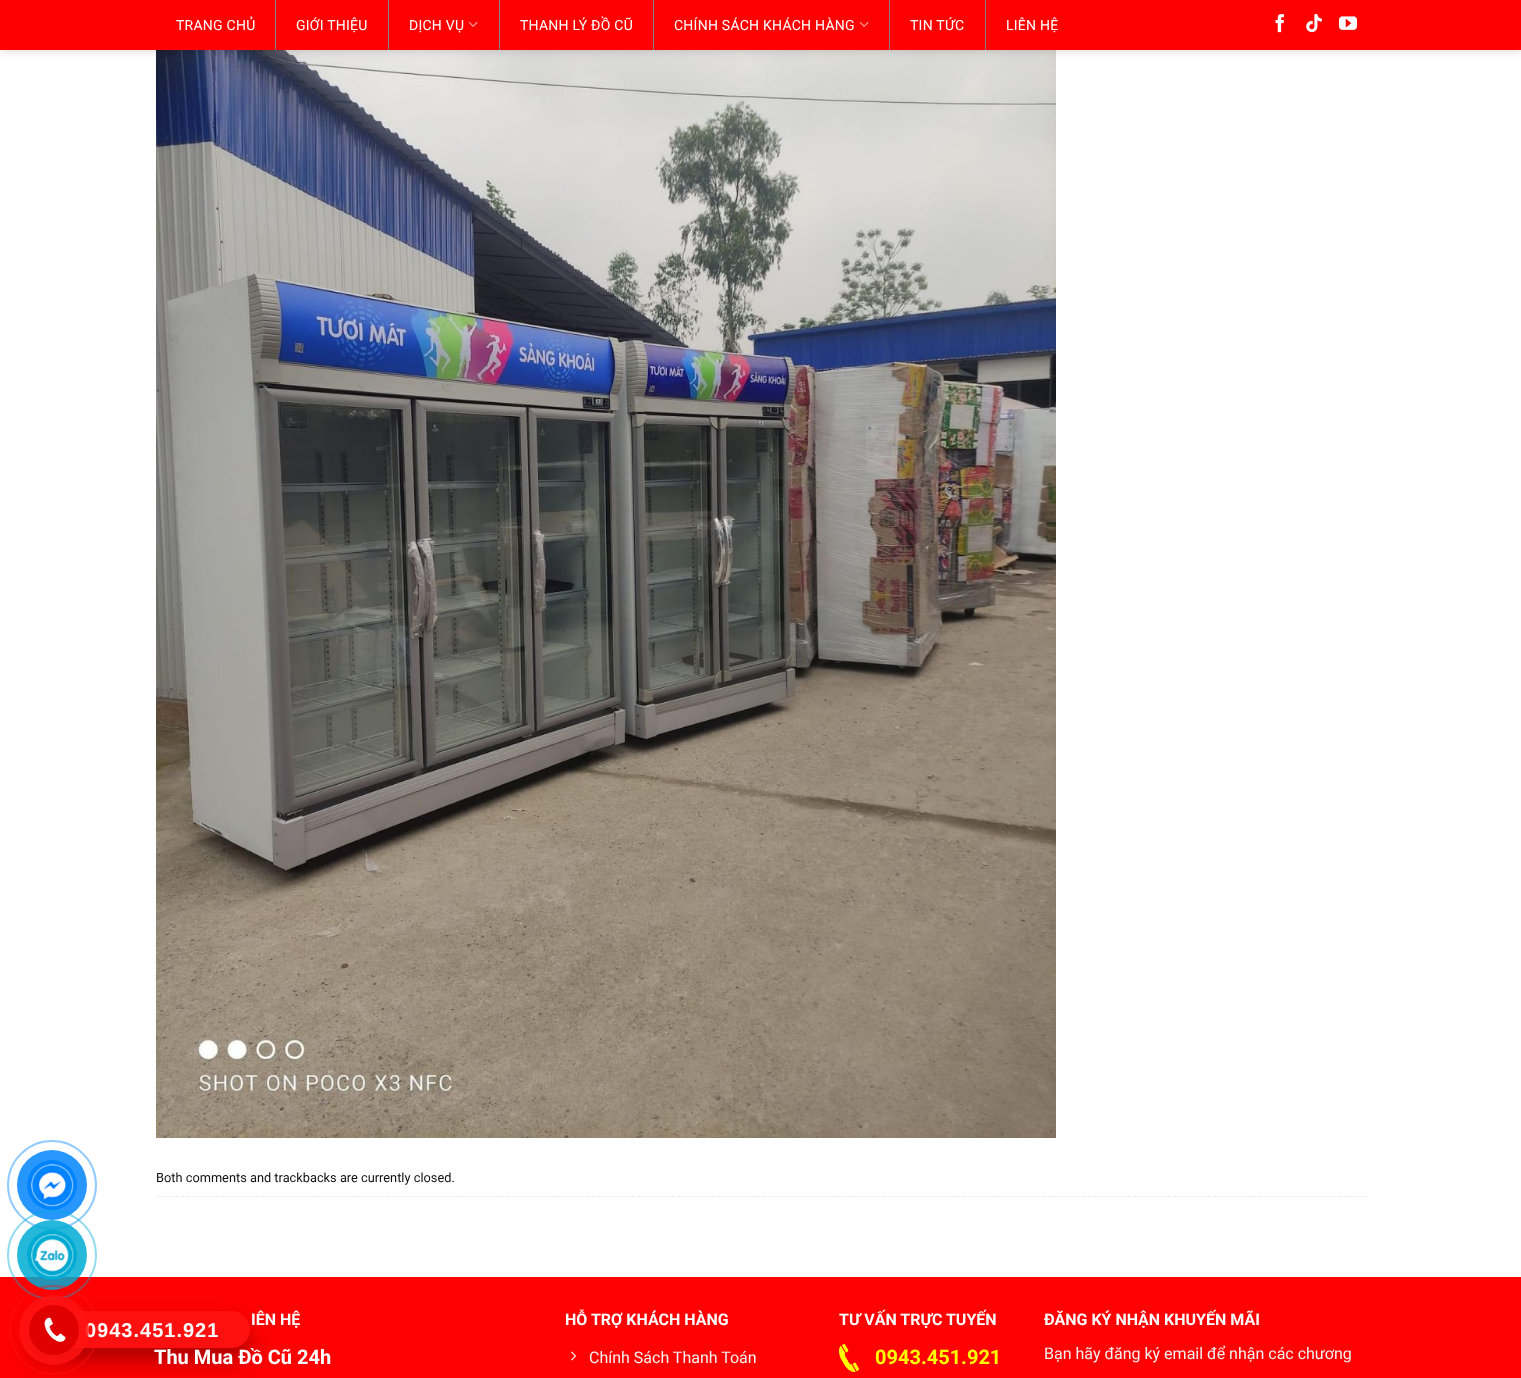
<?xml version="1.0" encoding="UTF-8"?>
<svg xmlns="http://www.w3.org/2000/svg" width="1521" height="1378">
    <defs>
        <clipPath id="clip1"><path d="M 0 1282 H 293 V 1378 H 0 Z M 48.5 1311 H 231.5 C 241.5 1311 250 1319.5 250 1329.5 C 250 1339.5 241.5 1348 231.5 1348 H 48.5 C 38.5 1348 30 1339.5 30 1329.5 C 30 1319.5 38.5 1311 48.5 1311 Z" clip-rule="evenodd"/></clipPath>
        <filter id="blur1" x="-50%" y="-200%" width="200%" height="500%"><feGaussianBlur stdDeviation="14"/></filter>
        <clipPath id="clip2"><path d="M 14 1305 H 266 V 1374 H 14 Z M 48.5 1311 H 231.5 C 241.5 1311 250 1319.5 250 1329.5 C 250 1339.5 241.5 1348 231.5 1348 H 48.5 C 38.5 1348 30 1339.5 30 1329.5 C 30 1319.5 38.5 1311 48.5 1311 Z" clip-rule="evenodd"/></clipPath>
        <filter id="blur2" x="-50%" y="-200%" width="200%" height="500%"><feGaussianBlur stdDeviation="5"/></filter>
    </defs>
    <rect width="100%" height="100%" fill="#FFFFFF"/>
    <circle cx="52" cy="1185" r="44" fill="none" stroke="#93CBFF" stroke-width="2"/>
    <circle cx="52" cy="1185" r="35" fill="#2797FE"/>
    <circle cx="52" cy="1185" r="25" fill="#0084FE"/>
    <image x="31" y="1164" width="43" height="43" href="img_01.png"/>
    <rect x="0" y="1277" width="1521" height="101" fill="#FF0101"/>
    <g clip-path="url(#clip1)">
        <rect x="30" y="1325" width="220" height="37" rx="18.5" fill="#000000" fill-opacity="0.25" filter="url(#blur1)"/>
    </g>
    <circle cx="52" cy="1255" r="44" fill="none" stroke="#00ABD3" stroke-opacity="0.42" stroke-width="2"/>
    <circle cx="52" cy="1255" r="35" fill="#00ABD3" fill-opacity="0.85"/>
    <circle cx="52" cy="1255" r="25" fill="#00ABD3"/>
    <image x="31" y="1234" width="43" height="43" href="img_02.png"/>
    <g clip-path="url(#clip2)">
        <rect x="30" y="1321" width="220" height="37" rx="18.5" fill="#000000" fill-opacity="0.1" filter="url(#blur2)"/>
    </g>
    <rect x="30" y="1311" width="220" height="37" rx="18.5" fill="#FF1313" fill-opacity="0.85"/>
    <text x="85" y="1337" font-family="Liberation Sans" font-size="20" font-weight="700" letter-spacing="1" fill="#FFFFFF">0943.451.921</text>
    <circle cx="54" cy="1330" r="44" fill="none" stroke="#FF1313" stroke-opacity="0.42" stroke-width="2"/>
    <circle cx="54" cy="1330" r="35" fill="#FF1313" fill-opacity="0.85"/>
    <circle cx="54" cy="1330" r="25" fill="#E00000"/>
    <image x="44" y="1317" width="22" height="25" href="img_03.png"/>
    <image x="156" y="50" width="900" height="1088" href="img_08.png"/>
    <rect x="1" y="1" width="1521" height="50" fill="#000000" fill-opacity="0.15" filter="url(#blur2)"/>
    <rect x="0" y="0" width="1521" height="50" fill="#FF0000"/>
    <text x="176" y="30" font-family="Roboto" font-size="14" letter-spacing="0.25" fill="#FFFFFF">TRANG CHỦ</text>
    <rect x="275" y="0" width="1" height="50" fill="#828282"/>
    <text x="296" y="30" font-family="Roboto" font-size="14" letter-spacing="0.25" fill="#FFFFFF">GIỚI THIỆU</text>
    <rect x="388" y="0" width="1" height="50" fill="#828282"/>
    <text x="409" y="30" font-family="Roboto" font-size="14" letter-spacing="0.25" fill="#FFFFFF">DỊCH VỤ</text>
    <image x="468" y="21" width="10" height="6" href="img_04.png"/>
    <rect x="499" y="0" width="1" height="50" fill="#828282"/>
    <text x="520" y="30" font-family="Roboto" font-size="14" letter-spacing="0.25" fill="#FFFFFF">THANH LÝ ĐỒ CŨ</text>
    <rect x="653" y="0" width="1" height="50" fill="#828282"/>
    <text x="674" y="30" font-family="Roboto" font-size="14" letter-spacing="0.25" fill="#FFFFFF">CHÍNH SÁCH KHÁCH HÀNG</text>
    <image x="859" y="21" width="10" height="6" href="img_04.png"/>
    <rect x="889" y="0" width="1" height="50" fill="#828282"/>
    <text x="910" y="30" font-family="Roboto" font-size="14" letter-spacing="0.25" fill="#FFFFFF">TIN TỨC</text>
    <rect x="985" y="0" width="1" height="50" fill="#828282"/>
    <text x="1006" y="30" font-family="Roboto" font-size="14" letter-spacing="0.25" fill="#FFFFFF">LIÊN HỆ</text>
    <image x="1275" y="14" width="9" height="19" href="img_05.png"/>
    <image x="1306" y="14" width="16" height="19" href="img_06.png"/>
    <image x="1339" y="16" width="18" height="14" href="img_07.png"/>
    <path d="M 156 1196.5 H 1366" fill="none" stroke="#ECECEC" stroke-dasharray="3 2.01"/>
    <text x="156" y="1182" font-family="Roboto" font-size="12.8" fill="#111111">Both comments and trackbacks are currently closed.</text>
    <text x="251" y="1325" font-family="Roboto" font-size="16" font-weight="700" fill="#FFFFFF">IÊN HỆ</text>
    <text x="154" y="1364" font-family="Roboto" font-size="20" font-weight="700" fill="#FFFFFF">Thu Mua Đồ Cũ 24h</text>
    <text x="565" y="1325" font-family="Roboto" font-size="16" font-weight="700" fill="#FFFFFF">HỖ TRỢ KHÁCH HÀNG</text>
    <image x="571" y="1351" width="6" height="10" href="img_09.png"/>
    <text x="589" y="1363" font-family="Roboto" font-size="16" fill="#F1F1F1">Chính Sách Thanh Toán</text>
    <text x="839" y="1325" font-family="Roboto" font-size="16" font-weight="700" fill="#FFFFFF">TƯ VẤN TRỰC TUYẾN</text>
    <image x="839" y="1344" width="20" height="28" href="img_10.png"/>
    <text x="875" y="1364" font-family="Roboto" font-size="20" font-weight="700" fill="#FFFD00">0943.451.921</text>
    <text x="1044" y="1325" font-family="Roboto" font-size="16" font-weight="700" fill="#FFFFFF">ĐĂNG KÝ NHẬN KHUYẾN MÃI</text>
    <text x="1044" y="1359" font-family="Roboto" font-size="16" fill="#F1F1F1">Bạn hãy đăng ký email để nhận các chương</text>
</svg>
